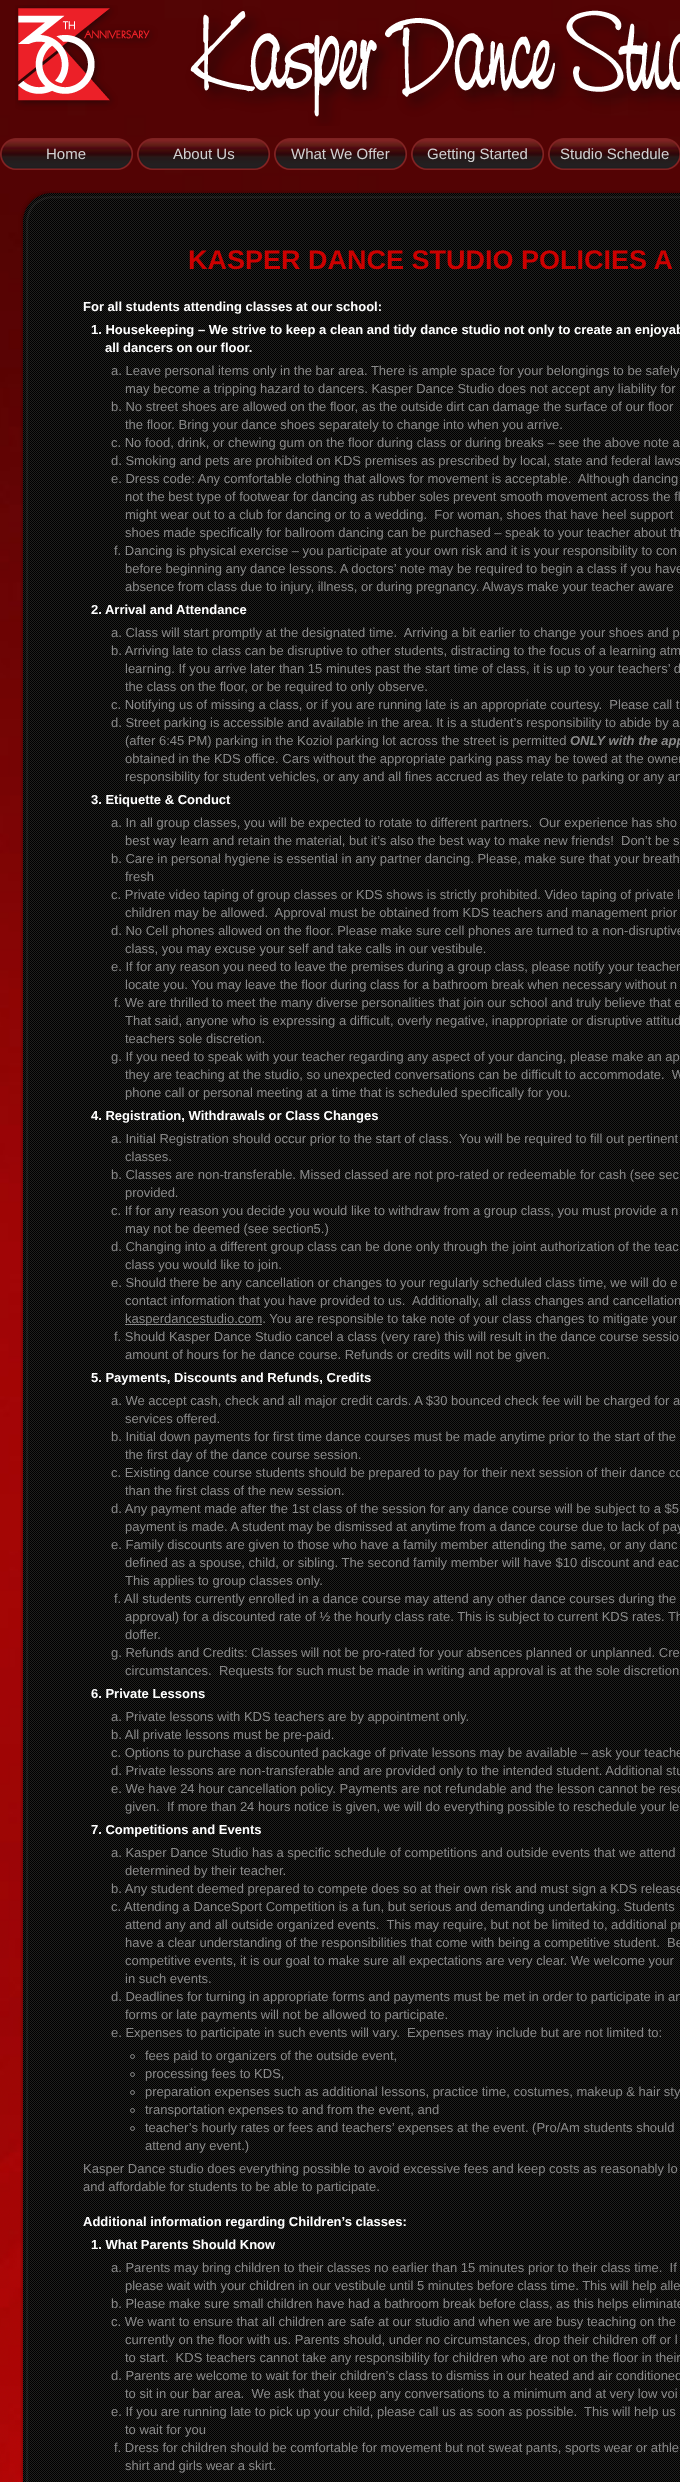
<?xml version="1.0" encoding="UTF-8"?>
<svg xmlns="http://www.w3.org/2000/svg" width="680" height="2482">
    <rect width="100%" height="100%" fill="#FFFFFF"/>
    <image x="0" y="0" width="680" height="2482" href="img_01.png"/>
    <image x="15" y="5" width="665" height="121" href="img_02.png"/>
    <image x="0" y="138" width="133" height="32" href="img_03.png"/>
    <text x="46" y="159" font-family="Liberation Sans" font-size="15" fill="#D1D1D1">Home</text>
    <image x="137" y="138" width="133" height="32" href="img_04.png"/>
    <text x="173" y="159" font-family="Liberation Sans" font-size="15" fill="#D1D1D1">About Us</text>
    <image x="274" y="138" width="133" height="32" href="img_05.png"/>
    <text x="291" y="159" font-family="Liberation Sans" font-size="15" fill="#D1D1D1">What We Offer</text>
    <image x="411" y="138" width="133" height="32" href="img_03.png"/>
    <text x="427" y="159" font-family="Liberation Sans" font-size="15" fill="#D1D1D1">Getting Started</text>
    <image x="548" y="138" width="132" height="32" href="img_06.png"/>
    <text x="560" y="159" font-family="Liberation Sans" font-size="15" fill="#D1D1D1">Studio Schedule</text>
    <image x="20" y="191" width="30" height="29" href="img_07.png"/>
    <image x="50" y="190" width="630" height="30" href="img_08.png"/>
    <image x="20" y="220" width="30" height="2262" href="img_09.png"/>
    <image x="50" y="220" width="630" height="2262" href="img_10.png"/>
    <text x="188" y="269" font-family="Liberation Sans" font-size="27" font-weight="700" fill="#CC0000">KASPER DANCE STUDIO POLICIES A</text>
    <text x="83" y="311" font-family="Liberation Sans" font-size="13" font-weight="700" fill="#FFFFFF">For all students attending classes at our school:</text>
    <text x="91" y="334" font-family="Liberation Sans" font-size="13" font-weight="700" fill="#FFFFFF">1. Housekeeping – We strive to keep a clean and tidy dance studio not only to create an enjoyab</text>
    <text x="105" y="352" font-family="Liberation Sans" font-size="13" font-weight="700" fill="#FFFFFF">all dancers on our floor.</text>
    <text x="111" y="375" font-family="Liberation Sans" font-size="13" fill="#8A8A8A">a. Leave personal items only in the bar area. There is ample space for your belongings to be safely</text>
    <text x="125" y="393" font-family="Liberation Sans" font-size="13" fill="#8A8A8A">may become a tripping hazard to dancers. Kasper Dance Studio does not accept any liability for</text>
    <text x="111" y="411" font-family="Liberation Sans" font-size="13" fill="#8A8A8A">b. No street shoes are allowed on the floor, as the outside dirt can damage the surface of our floor</text>
    <text x="125" y="429" font-family="Liberation Sans" font-size="13" fill="#8A8A8A">the floor. Bring your dance shoes separately to change into when you arrive.</text>
    <text font-family="Liberation Sans" font-size="13" fill="#8A8A8A" xml:space="preserve"><tspan x="111" y="447">c. No food, drink, or chewing gum on the floor during class or during breaks – see the above note a</tspan><tspan x="111" y="465">d. Smoking and pets are prohibited on KDS premises as prescribed by local, state and federal laws</tspan><tspan x="111" y="483">e. Dress code: Any comfortable clothing that allows for movement is acceptable.  Although dancing</tspan></text>
    <text font-family="Liberation Sans" font-size="13" fill="#8A8A8A" xml:space="preserve"><tspan x="125" y="501">not the best type of footwear for dancing as rubber soles prevent smooth movement across the fl</tspan><tspan x="125" y="519">might wear out to a club for dancing or to a wedding.  For woman, shoes that have heel support</tspan><tspan x="125" y="537">shoes made specifically for ballroom dancing can be purchased – speak to your teacher about th</tspan></text>
    <text x="114" y="555" font-family="Liberation Sans" font-size="13" fill="#8A8A8A">f. Dancing is physical exercise – you participate at your own risk and it is your responsibility to con</text>
    <text font-family="Liberation Sans" font-size="13" fill="#8A8A8A">
        <tspan x="125" y="573">before beginning any dance lessons. A doctors’ note may be required to begin a class if you have</tspan>
        <tspan x="125" y="591">absence from class due to injury, illness, or during pregnancy. Always make your teacher aware</tspan>
    </text>
    <text x="91" y="614" font-family="Liberation Sans" font-size="13" font-weight="700" fill="#FFFFFF">2. Arrival and Attendance</text>
    <text font-family="Liberation Sans" font-size="13" fill="#8A8A8A" xml:space="preserve"><tspan x="111" y="637">a. Class will start promptly at the designated time.  Arriving a bit earlier to change your shoes and p</tspan><tspan x="111" y="655">b. Arriving late to class can be disruptive to other students, distracting to the focus of a learning atm</tspan></text>
    <text font-family="Liberation Sans" font-size="13" fill="#8A8A8A">
        <tspan x="125" y="673">learning. If you arrive later than 15 minutes past the start time of class, it is up to your teachers’ d</tspan>
        <tspan x="125" y="691">the class on the floor, or be required to only observe.</tspan>
    </text>
    <text font-family="Liberation Sans" font-size="13" fill="#8A8A8A" xml:space="preserve"><tspan x="111" y="709">c. Notifying us of missing a class, or if you are running late is an appropriate courtesy.  Please call t</tspan><tspan x="111" y="727">d. Street parking is accessible and available in the area. It is a student’s responsibility to abide by a</tspan></text>
    <text x="125" y="745" font-family="Liberation Sans" font-size="13" fill="#8A8A8A">(after 6:45 PM) parking in the Koziol parking lot across the street is permitted</text>
    <text x="570" y="745" font-family="Liberation Sans" font-size="13" font-weight="700" font-style="italic" fill="#8A8A8A">ONLY with the app</text>
    <text font-family="Liberation Sans" font-size="13" fill="#8A8A8A">
        <tspan x="125" y="763">obtained in the KDS office. Cars without the appropriate parking pass may be towed at the owner</tspan>
        <tspan x="125" y="781">responsibility for student vehicles, or any and all fines accrued as they relate to parking or any an</tspan>
    </text>
    <text x="91" y="804" font-family="Liberation Sans" font-size="13" font-weight="700" fill="#FFFFFF">3. Etiquette &amp; Conduct</text>
    <text x="111" y="827" font-family="Liberation Sans" font-size="13" fill="#8A8A8A">a. In all group classes, you will be expected to rotate to different partners.</text>
    <text x="539" y="827" font-family="Liberation Sans" font-size="13" fill="#8A8A8A">Our experience has sho</text>
    <text x="125" y="845" font-family="Liberation Sans" font-size="13" fill="#8A8A8A">best way learn and retain the material, but it’s also the best way to make new friends!</text>
    <text x="621" y="845" font-family="Liberation Sans" font-size="13" fill="#8A8A8A">Don’t be s</text>
    <text x="111" y="863" font-family="Liberation Sans" font-size="13" fill="#8A8A8A">b. Care in personal hygiene is essential in any partner dancing. Please, make sure that your breath</text>
    <text x="125" y="881" font-family="Liberation Sans" font-size="13" fill="#8A8A8A">fresh</text>
    <text x="111" y="899" font-family="Liberation Sans" font-size="13" fill="#8A8A8A">c. Private video taping of group classes or KDS shows is strictly prohibited. Video taping of private l</text>
    <text x="125" y="917" font-family="Liberation Sans" font-size="13" fill="#8A8A8A" xml:space="preserve">children may be allowed.  Approval must be obtained from KDS teachers and management prior</text>
    <text x="111" y="935" font-family="Liberation Sans" font-size="13" fill="#8A8A8A">d. No Cell phones allowed on the floor. Please make sure cell phones are turned to a non-disruptive</text>
    <text x="125" y="953" font-family="Liberation Sans" font-size="13" fill="#8A8A8A">class, you may excuse your self and take calls in our vestibule.</text>
    <text x="111" y="971" font-family="Liberation Sans" font-size="13" fill="#8A8A8A">e. If for any reason you need to leave the premises during a group class, please notify your teacher</text>
    <text x="125" y="989" font-family="Liberation Sans" font-size="13" fill="#8A8A8A">locate you. You may leave the floor during class for a bathroom break when necessary without n</text>
    <text x="114" y="1007" font-family="Liberation Sans" font-size="13" fill="#8A8A8A">f. We are thrilled to meet the many diverse personalities that join our school and truly believe that e</text>
    <text font-family="Liberation Sans" font-size="13" fill="#8A8A8A">
        <tspan x="125" y="1025">That said, anyone who is expressing a difficult, overly negative, inappropriate or disruptive attitud</tspan>
        <tspan x="125" y="1043">teachers sole discretion.</tspan>
    </text>
    <text x="111" y="1061" font-family="Liberation Sans" font-size="13" fill="#8A8A8A">g. If you need to speak with your teacher regarding any aspect of your dancing, please make an ap</text>
    <text font-family="Liberation Sans" font-size="13" fill="#8A8A8A" xml:space="preserve"><tspan x="125" y="1079">they are teaching at the studio, so unexpected conversations can be difficult to accommodate.  W</tspan><tspan x="125" y="1097">phone call or personal meeting at a time that is scheduled specifically for you.</tspan></text>
    <text x="91" y="1120" font-family="Liberation Sans" font-size="13" font-weight="700" fill="#FFFFFF">4. Registration, Withdrawals or Class Changes</text>
    <text x="111" y="1143" font-family="Liberation Sans" font-size="13" fill="#8A8A8A">a. Initial Registration should occur prior to the start of class.</text>
    <text x="459" y="1143" font-family="Liberation Sans" font-size="13" fill="#8A8A8A">You will be required to fill out pertinent</text>
    <text x="125" y="1161" font-family="Liberation Sans" font-size="13" fill="#8A8A8A">classes.</text>
    <text x="111" y="1179" font-family="Liberation Sans" font-size="13" fill="#8A8A8A">b. Classes are non-transferable. Missed classed are not pro-rated or redeemable for cash (see sec</text>
    <text x="125" y="1197" font-family="Liberation Sans" font-size="13" fill="#8A8A8A">provided.</text>
    <text x="111" y="1215" font-family="Liberation Sans" font-size="13" fill="#8A8A8A">c. If for any reason you decide you would like to withdraw from a group class, you must provide a n</text>
    <text x="125" y="1233" font-family="Liberation Sans" font-size="13" fill="#8A8A8A">may not be deemed (see section5.)</text>
    <text x="111" y="1251" font-family="Liberation Sans" font-size="13" fill="#8A8A8A">d. Changing into a different group class can be done only through the joint authorization of the teac</text>
    <text x="125" y="1269" font-family="Liberation Sans" font-size="13" fill="#8A8A8A">class you would like to join.</text>
    <text x="111" y="1287" font-family="Liberation Sans" font-size="13" fill="#8A8A8A">e. Should there be any cancellation or changes to your regularly scheduled class time, we will do e</text>
    <text x="125" y="1305" font-family="Liberation Sans" font-size="13" fill="#8A8A8A">contact information that you have provided to us.</text>
    <text x="412" y="1305" font-family="Liberation Sans" font-size="13" fill="#8A8A8A">Additionally, all class changes and cancellation</text>
    <rect x="125" y="1324" width="137" height="1" fill="#8A8A8A"/>
    <text x="125" y="1323" font-family="Liberation Sans" font-size="13" fill="#8A8A8A">kasperdancestudio.com. You are responsible to take note of your class changes to mitigate your</text>
    <text x="114" y="1341" font-family="Liberation Sans" font-size="13" fill="#8A8A8A">f. Should Kasper Dance Studio cancel a class (very rare) this will result in the dance course sessio</text>
    <text x="125" y="1359" font-family="Liberation Sans" font-size="13" fill="#8A8A8A">amount of hours for he dance course. Refunds or credits will not be given.</text>
    <text x="91" y="1382" font-family="Liberation Sans" font-size="13" font-weight="700" fill="#FFFFFF">5. Payments, Discounts and Refunds, Credits</text>
    <text x="111" y="1405" font-family="Liberation Sans" font-size="13" fill="#8A8A8A">a. We accept cash, check and all major credit cards. A $30 bounced check fee will be charged for a</text>
    <text x="125" y="1423" font-family="Liberation Sans" font-size="13" fill="#8A8A8A">services offered.</text>
    <text x="111" y="1441" font-family="Liberation Sans" font-size="13" fill="#8A8A8A">b. Initial down payments for first time dance courses must be made anytime prior to the start of the</text>
    <text x="125" y="1459" font-family="Liberation Sans" font-size="13" fill="#8A8A8A">the first day of the dance course session.</text>
    <text x="111" y="1477" font-family="Liberation Sans" font-size="13" fill="#8A8A8A">c. Existing dance course students should be prepared to pay for their next session of their dance co</text>
    <text x="125" y="1495" font-family="Liberation Sans" font-size="13" fill="#8A8A8A">than the first class of the new session.</text>
    <text x="111" y="1513" font-family="Liberation Sans" font-size="13" fill="#8A8A8A">d. Any payment made after the 1st class of the session for any dance course will be subject to a $5</text>
    <text x="125" y="1531" font-family="Liberation Sans" font-size="13" fill="#8A8A8A">payment is made. A student may be dismissed at anytime from a dance course due to lack of pay</text>
    <text x="111" y="1549" font-family="Liberation Sans" font-size="13" fill="#8A8A8A">e. Family discounts are given to those who have a family member attending the same, or any danc</text>
    <text font-family="Liberation Sans" font-size="13" fill="#8A8A8A">
        <tspan x="125" y="1567">defined as a spouse, child, or sibling. The second family member will have $10 discount and eac</tspan>
        <tspan x="125" y="1585">This applies to group classes only.</tspan>
    </text>
    <text x="114" y="1603" font-family="Liberation Sans" font-size="13" fill="#8A8A8A">f. All students currently enrolled in a dance course may attend any other dance courses during the</text>
    <text font-family="Liberation Sans" font-size="13" fill="#8A8A8A">
        <tspan x="125" y="1621">approval) for a discounted rate of ½ the hourly class rate. This is subject to current KDS rates. Th</tspan>
        <tspan x="125" y="1639">doffer.</tspan>
    </text>
    <text x="111" y="1657" font-family="Liberation Sans" font-size="13" fill="#8A8A8A">g. Refunds and Credits: Classes will not be pro-rated for your absences planned or unplanned. Cre</text>
    <text x="125" y="1675" font-family="Liberation Sans" font-size="13" fill="#8A8A8A" xml:space="preserve">circumstances.  Requests for such must be made in writing and approval is at the sole discretion</text>
    <text x="91" y="1698" font-family="Liberation Sans" font-size="13" font-weight="700" fill="#FFFFFF">6. Private Lessons</text>
    <text font-family="Liberation Sans" font-size="13" fill="#8A8A8A">
        <tspan x="111" y="1721">a. Private lessons with KDS teachers are by appointment only.</tspan>
        <tspan x="111" y="1739">b. All private lessons must be pre-paid.</tspan>
        <tspan x="111" y="1757">c. Options to purchase a discounted package of private lessons may be available – ask your teache</tspan>
        <tspan x="111" y="1775">d. Private lessons are non-transferable and are provided only to the intended student. Additional stu</tspan>
        <tspan x="111" y="1793">e. We have 24 hour cancellation policy. Payments are not refundable and the lesson cannot be resc</tspan>
    </text>
    <text x="125" y="1811" font-family="Liberation Sans" font-size="13" fill="#8A8A8A" xml:space="preserve">given.  If more than 24 hours notice is given, we will do everything possible to reschedule your le</text>
    <text x="91" y="1834" font-family="Liberation Sans" font-size="13" font-weight="700" fill="#FFFFFF">7. Competitions and Events</text>
    <text x="111" y="1857" font-family="Liberation Sans" font-size="13" fill="#8A8A8A">a. Kasper Dance Studio has a specific schedule of competitions and outside events that we attend</text>
    <text x="125" y="1875" font-family="Liberation Sans" font-size="13" fill="#8A8A8A">determined by their teacher.</text>
    <text font-family="Liberation Sans" font-size="13" fill="#8A8A8A">
        <tspan x="111" y="1893">b. Any student deemed prepared to compete does so at their own risk and must sign a KDS release</tspan>
        <tspan x="111" y="1911">c. Attending a DanceSport Competition is a fun, but serious and demanding undertaking. Students</tspan>
    </text>
    <text font-family="Liberation Sans" font-size="13" fill="#8A8A8A" xml:space="preserve"><tspan x="125" y="1929">attend any and all outside organized events.  This may require, but not be limited to, additional pr</tspan><tspan x="125" y="1947">have a clear understanding of the responsibilities that come with being a competitive student.  Be</tspan><tspan x="125" y="1965">competitive events, it is our goal to make sure all expectations are very clear. We welcome your</tspan><tspan x="125" y="1983">in such events.</tspan></text>
    <text x="111" y="2001" font-family="Liberation Sans" font-size="13" fill="#8A8A8A">d. Deadlines for turning in appropriate forms and payments must be met in order to participate in an</text>
    <text x="125" y="2019" font-family="Liberation Sans" font-size="13" fill="#8A8A8A">forms or late payments will not be allowed to participate.</text>
    <text x="111" y="2037" font-family="Liberation Sans" font-size="13" fill="#8A8A8A" xml:space="preserve">e. Expenses to participate in such events will vary.  Expenses may include but are not limited to:</text>
    <circle cx="132.5" cy="2056.5" r="2" fill="none" stroke="#8A8A8A"/>
    <text x="145" y="2060" font-family="Liberation Sans" font-size="13" fill="#8A8A8A">fees paid to organizers of the outside event,</text>
    <circle cx="132.5" cy="2074.5" r="2" fill="none" stroke="#8A8A8A"/>
    <text x="145" y="2078" font-family="Liberation Sans" font-size="13" fill="#8A8A8A">processing fees to KDS,</text>
    <circle cx="132.5" cy="2092.5" r="2" fill="none" stroke="#8A8A8A"/>
    <text x="145" y="2096" font-family="Liberation Sans" font-size="13" fill="#8A8A8A">preparation expenses such as additional lessons, practice time, costumes, makeup &amp; hair sty</text>
    <circle cx="132.5" cy="2110.5" r="2" fill="none" stroke="#8A8A8A"/>
    <text x="145" y="2114" font-family="Liberation Sans" font-size="13" fill="#8A8A8A">transportation expenses to and from the event, and</text>
    <circle cx="132.5" cy="2128.5" r="2" fill="none" stroke="#8A8A8A"/>
    <text font-family="Liberation Sans" font-size="13" fill="#8A8A8A">
        <tspan x="145" y="2132">teacher’s hourly rates or fees and teachers’ expenses at the event. (Pro/Am students should</tspan>
        <tspan x="145" y="2150">attend any event.)</tspan>
    </text>
    <text font-family="Liberation Sans" font-size="13" fill="#8A8A8A">
        <tspan x="83" y="2173">Kasper Dance studio does everything possible to avoid excessive fees and keep costs as reasonably lo</tspan>
        <tspan x="83" y="2191">and affordable for students to be able to participate.</tspan>
    </text>
    <text x="83" y="2226" font-family="Liberation Sans" font-size="13" font-weight="700" fill="#FFFFFF">Additional information regarding Children’s classes:</text>
    <text x="91" y="2249" font-family="Liberation Sans" font-size="13" font-weight="700" fill="#FFFFFF">1. What Parents Should Know</text>
    <text x="111" y="2272" font-family="Liberation Sans" font-size="13" fill="#8A8A8A" xml:space="preserve">a. Parents may bring children to their classes no earlier than 15 minutes prior to their class time.  If</text>
    <text x="125" y="2290" font-family="Liberation Sans" font-size="13" fill="#8A8A8A">please wait with your children in our vestibule until 5 minutes before class time. This will help alle</text>
    <text font-family="Liberation Sans" font-size="13" fill="#8A8A8A">
        <tspan x="111" y="2308">b. Please make sure small children have had a bathroom break before class, as this helps eliminate</tspan>
        <tspan x="111" y="2326">c. We want to ensure that all children are safe at our studio and when we are busy teaching on the</tspan>
    </text>
    <text font-family="Liberation Sans" font-size="13" fill="#8A8A8A" xml:space="preserve"><tspan x="125" y="2344">currently on the floor with us. Parents should, under no circumstances, drop their children off or l</tspan><tspan x="125" y="2362">to start.  KDS teachers cannot take any responsibility for children who are not on the floor in their</tspan></text>
    <text x="111" y="2380" font-family="Liberation Sans" font-size="13" fill="#8A8A8A">d. Parents are welcome to wait for their children’s class to dismiss in our heated and air conditioned</text>
    <text x="125" y="2398" font-family="Liberation Sans" font-size="13" fill="#8A8A8A" xml:space="preserve">to sit in our bar area.  We ask that you keep any conversations to a minimum and at very low voi</text>
    <text x="111" y="2416" font-family="Liberation Sans" font-size="13" fill="#8A8A8A" xml:space="preserve">e. If you are running late to pick up your child, please call us as soon as possible.  This will help us</text>
    <text x="125" y="2434" font-family="Liberation Sans" font-size="13" fill="#8A8A8A">to wait for you</text>
    <text x="114" y="2452" font-family="Liberation Sans" font-size="13" fill="#8A8A8A">f. Dress for children should be comfortable for movement but not sweat pants, sports wear or athle</text>
    <text x="125" y="2470" font-family="Liberation Sans" font-size="13" fill="#8A8A8A">shirt and girls wear a skirt.</text>
</svg>
